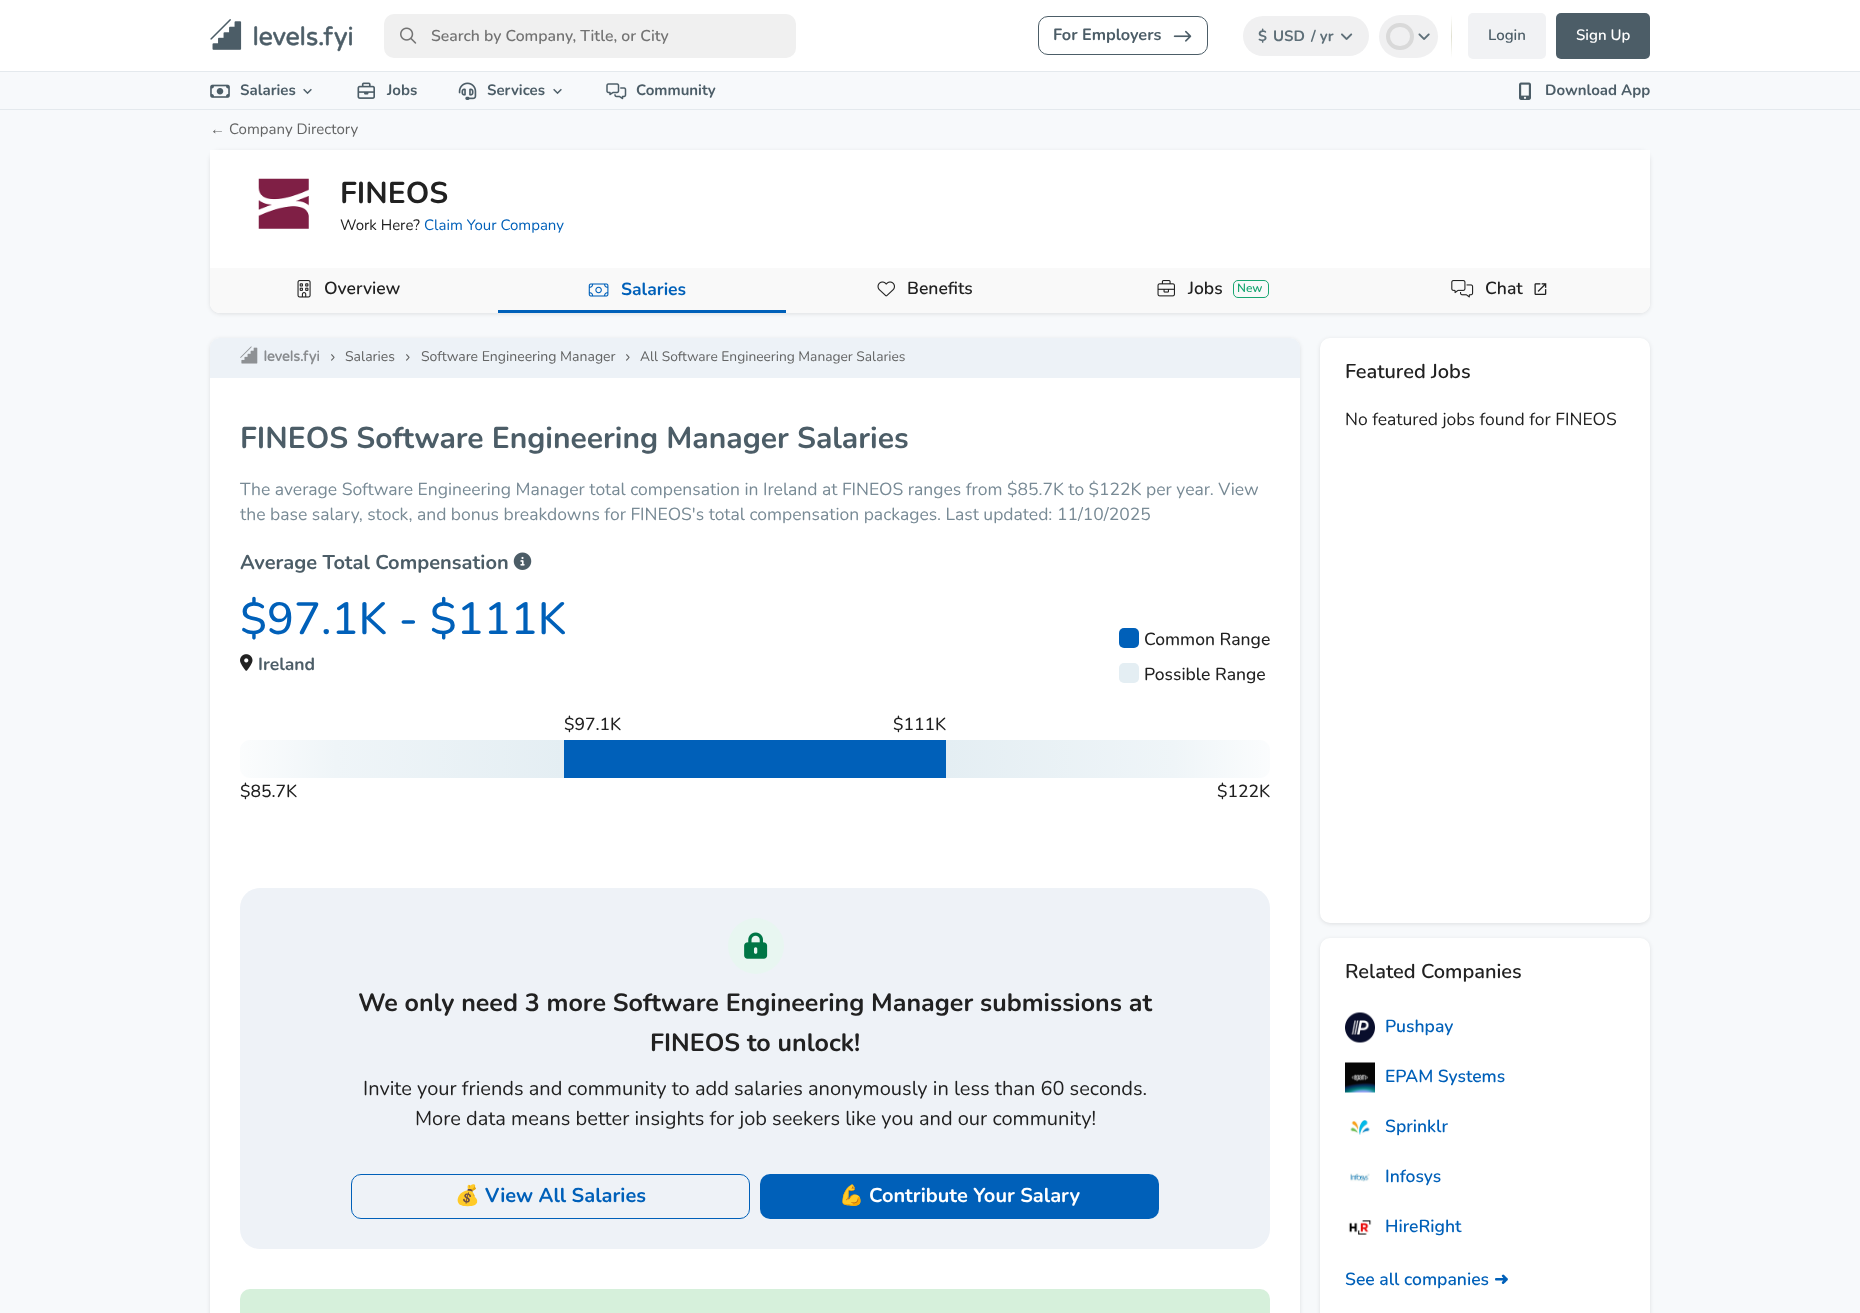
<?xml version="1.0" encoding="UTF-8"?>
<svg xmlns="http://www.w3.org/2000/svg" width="1860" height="1313">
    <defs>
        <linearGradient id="g1" gradientUnits="userSpaceOnUse" x1="1452" y1="15" x2="1452" y2="58"><stop offset="0" stop-color="#FFFFFF"/><stop offset="0.5" stop-color="#E1E1D1"/><stop offset="1" stop-color="#FFFFFF"/></linearGradient>
        <filter id="blur1" x="-50%" y="-200%" width="200%" height="500%"><feGaussianBlur stdDeviation="2"/></filter>
        <linearGradient id="g2" gradientUnits="userSpaceOnUse" x1="208" y1="759" x2="564" y2="759"><stop offset="0" stop-color="#FFFFFF"/><stop offset="0.36" stop-color="#EFF5F8"/><stop offset="1" stop-color="#E4EEF3"/></linearGradient>
        <linearGradient id="g3" gradientUnits="userSpaceOnUse" x1="1302" y1="759" x2="946" y2="759"><stop offset="0" stop-color="#FFFFFF"/><stop offset="0.36" stop-color="#EFF5F8"/><stop offset="1" stop-color="#E4EEF3"/></linearGradient>
    </defs>
    <rect width="100%" height="100%" fill="#F7F9FB"/>
    <rect x="0" y="0" width="1860" height="71" fill="#FFFFFF"/>
    <image x="210" y="19" width="143" height="33" href="img_01.png"/>
    <rect x="384" y="14" width="412" height="44" rx="10" fill="#F0F0F0"/>
    <image x="400" y="27" width="17" height="17" href="img_02.png"/>
    <text x="431" y="41" font-family="Nunito" font-size="15.75" font-weight="600" fill="#737373">Search by Company, Title, or City</text>
    <rect x="1038.5" y="16.5" width="169" height="38" rx="9.5" fill="none" stroke="#4C5D67"/>
    <text x="1053" y="40" font-family="Nunito" font-size="16.25" font-weight="700" fill="#4C5D67">For Employers</text>
    <image x="1173" y="30" width="19" height="12" href="img_03.png"/>
    <rect x="1243" y="16" width="126" height="40" rx="20" fill="#F0F0F1"/>
    <text x="1258" y="41" font-family="Nunito" font-size="15" font-weight="700" fill="#5E6F78">$</text>
    <text x="1273" y="41" font-family="Nunito" font-size="15" font-weight="700" fill="#5E6F78">USD</text>
    <text x="1311" y="41" font-family="Nunito" font-size="15" font-weight="700" fill="#5E6F78">/ yr</text>
    <image x="1341" y="33" width="12" height="7" href="img_04.png"/>
    <rect x="1379" y="15" width="59" height="43" rx="21.5" fill="#F0F0F1"/>
    <rect x="1388" y="25" width="24" height="23" rx="11.5" fill="none" stroke="#D9D9D9" stroke-width="4"/>
    <image x="1418" y="33" width="12" height="7" href="img_05.png"/>
    <rect x="1451" y="15" width="1" height="43" fill="url(#g1)"/>
    <rect x="1468" y="13" width="78" height="46" rx="5" fill="#F1F2F4"/>
    <text x="1488" y="40" font-family="Nunito" font-size="15" font-weight="600" fill="#4C5D67">Login</text>
    <rect x="1556" y="13" width="94" height="46" rx="5" fill="#4C5D67"/>
    <text x="1576" y="40" font-family="Nunito" font-size="15" font-weight="600" fill="#FFFFFF">Sign Up</text>
    <rect x="0" y="71" width="1860" height="1" fill="#E4E9ED"/>
    <rect x="0" y="109" width="1860" height="1" fill="#E4E9ED"/>
    <image x="210" y="84" width="20" height="14" href="img_06.png"/>
    <text x="240" y="95" font-family="Nunito" font-size="15" font-weight="700" fill="#4C5D67">Salaries</text>
    <image x="303" y="88" width="9" height="7" href="img_07.png"/>
    <image x="357" y="82" width="18" height="17" href="img_08.png"/>
    <text x="387" y="95" font-family="Nunito" font-size="15" font-weight="700" fill="#4C5D67">Jobs</text>
    <image x="458" y="82" width="19" height="18" href="img_09.png"/>
    <text x="487" y="95" font-family="Nunito" font-size="15" font-weight="700" fill="#4C5D67">Services</text>
    <image x="553" y="88" width="9" height="7" href="img_07.png"/>
    <image x="606" y="83" width="21" height="17" href="img_10.png"/>
    <text x="636" y="95" font-family="Nunito" font-size="15" font-weight="700" fill="#4C5D67">Community</text>
    <image x="1519" y="82" width="12" height="18" href="img_11.png"/>
    <text x="1545" y="95" font-family="Nunito" font-size="15" font-weight="700" fill="#4C5D67">Download App</text>
    <text x="210" y="134" font-family="Liberation Sans" font-size="15" fill="#636464">←</text>
    <text x="229" y="134" font-family="Nunito" font-size="15" fill="#636464">Company Directory</text>
    <rect x="210" y="151" width="1440" height="163" rx="10" fill="#000000" fill-opacity="0.1" filter="url(#blur1)"/>
    <path d="M 210 150 H 1650 V 303 C 1650 308.5 1645.5 313 1640 313 H 220 C 214.5 313 210 308.5 210 303 Z" fill="#FFFFFF"/>
    <image x="258" y="178" width="51" height="51" href="img_12.png"/>
    <text x="340" y="203" font-family="Nunito" font-size="30" font-weight="700" fill="#212121">FINEOS</text>
    <text x="340" y="230" font-family="Nunito" font-size="15" fill="#212121">Work Here?</text>
    <text x="424" y="230" font-family="Nunito" font-size="15" fill="#0060B9">Claim Your Company</text>
    <path d="M 210 268 H 1650 V 303 C 1650 308.5 1645.5 313 1640 313 H 220 C 214.5 313 210 308.5 210 303 Z" fill="#F9F9F9"/>
    <image x="297" y="280" width="14" height="18" href="img_13.png"/>
    <text x="324" y="294" font-family="Nunito" font-size="17.5" font-weight="600" fill="#212121">Overview</text>
    <image x="588" y="283" width="21" height="14" href="img_14.png"/>
    <text x="621" y="295" font-family="Nunito" font-size="17.5" font-weight="700" fill="#0060B9">Salaries</text>
    <image x="877" y="281" width="18" height="16" href="img_15.png"/>
    <text x="907" y="294" font-family="Nunito" font-size="17.5" font-weight="600" fill="#212121">Benefits</text>
    <image x="1157" y="280" width="18" height="17" href="img_16.png"/>
    <text x="1188" y="294" font-family="Nunito" font-size="17.5" font-weight="600" fill="#212121">Jobs</text>
    <rect x="1233.5" y="280.5" width="35" height="17" rx="4.5" fill="none" stroke="#19A672"/>
    <text x="1237" y="292" font-family="Nunito" font-size="12" font-weight="600" fill="#19A672">New</text>
    <image x="1451" y="280" width="23" height="18" href="img_17.png"/>
    <text x="1485" y="294" font-family="Nunito" font-size="17.5" font-weight="600" fill="#212121">Chat</text>
    <image x="1534" y="283" width="13" height="12" href="img_18.png"/>
    <rect x="498" y="310" width="288" height="3" fill="#0060B9"/>
    <rect x="210" y="339" width="1090" height="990" rx="10" fill="#000000" fill-opacity="0.1" filter="url(#blur1)"/>
    <rect x="210" y="338" width="1090" height="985" rx="10" fill="#FFFFFF"/>
    <path d="M 220 338 H 1290 C 1295.5 338 1300 342.5 1300 348 V 378 H 210 V 348 C 210 342.5 214.5 338 220 338 Z" fill="#EDF2F7"/>
    <image x="240" y="346" width="79" height="19" href="img_19.png"/>
    <text x="330" y="361" font-family="Varela Round" font-size="14" fill="#636464">›</text>
    <text x="345" y="361" font-family="Nunito" font-size="14" fill="#636464">Salaries</text>
    <text x="405" y="361" font-family="Varela Round" font-size="14" fill="#636464">›</text>
    <text x="421" y="361" font-family="Nunito" font-size="14" fill="#636464">Software Engineering Manager</text>
    <text x="625" y="361" font-family="Varela Round" font-size="14" fill="#636464">›</text>
    <text x="640" y="361" font-family="Nunito" font-size="13.75" fill="#636464">All Software Engineering Manager Salaries</text>
    <text x="240" y="448" font-family="Nunito" font-size="30" font-weight="700" fill="#4C5D67">FINEOS Software Engineering Manager Salaries</text>
    <text font-family="Nunito" font-size="17.5" fill="#788A95">
        <tspan x="240" y="495">The average Software Engineering Manager total compensation in Ireland at FINEOS ranges from $85.7K to $122K per year. View</tspan>
        <tspan x="240" y="520">the base salary, stock, and bonus breakdowns for FINEOS's total compensation packages. Last updated: 11/10/2025</tspan>
    </text>
    <text x="240" y="569" font-family="Nunito" font-size="20" font-weight="700" fill="#4C5D67">Average Total Compensation</text>
    <image x="513" y="552" width="19" height="18" href="img_20.png"/>
    <text x="240" y="634" font-family="Nunito" font-size="45" font-weight="500" fill="#0060B9">$97.1K - $111K</text>
    <image x="240" y="654" width="13" height="17" href="img_21.png"/>
    <text x="258" y="670" font-family="Nunito" font-size="17.5" font-weight="700" fill="#4C5D67">Ireland</text>
    <rect x="1119" y="628" width="20" height="20" rx="5" fill="#0060B9"/>
    <text x="1144" y="645" font-family="Nunito" font-size="17.5" font-weight="500" fill="#212121">Common Range</text>
    <rect x="1119" y="663" width="20" height="20" rx="5" fill="#E4EEF3"/>
    <text x="1144" y="680" font-family="Nunito" font-size="17.5" font-weight="500" fill="#212121">Possible Range</text>
    <text x="564" y="730" font-family="Nunito" font-size="17.5" font-weight="500" fill="#212121">$97.1K</text>
    <text x="893" y="730" font-family="Nunito" font-size="17.5" font-weight="500" fill="#212121">$111K</text>
    <rect x="564" y="740" width="382" height="38" fill="#0060B9"/>
    <path d="M 250 740 H 564 V 778 H 250 C 244.5 778 240 773.5 240 768 V 750 C 240 744.5 244.5 740 250 740 Z" fill="url(#g2)"/>
    <text x="240" y="797" font-family="Nunito" font-size="17.5" font-weight="500" fill="#212121">$85.7K</text>
    <path d="M 946 740 H 1260 C 1265.5 740 1270 744.5 1270 750 V 768 C 1270 773.5 1265.5 778 1260 778 H 946 Z" fill="url(#g3)"/>
    <text x="1217" y="797" font-family="Nunito" font-size="17.5" font-weight="500" fill="#212121">$122K</text>
    <rect x="240" y="888" width="1030" height="361" rx="20" fill="#EEF2F7"/>
    <circle cx="756" cy="946" r="28" fill="#E8F6F1"/>
    <image x="744" y="932" width="24" height="27" href="img_22.png"/>
    <text x="358" y="1011" font-family="Nunito" font-size="25" font-weight="700" fill="#212121">We only need 3 more Software Engineering Manager submissions at</text>
    <text x="650" y="1051" font-family="Nunito" font-size="25" font-weight="700" fill="#212121">FINEOS to unlock!</text>
    <text x="363" y="1095" font-family="Nunito" font-size="20" fill="#212121">Invite your friends and community to add salaries anonymously in less than 60 seconds.</text>
    <text x="415" y="1125" font-family="Nunito" font-size="20" fill="#212121">More data means better insights for job seekers like you and our community!</text>
    <rect x="351.5" y="1174.5" width="398" height="44" rx="9.5" fill="none" stroke="#0060B9"/>
    <text x="455" y="1202" font-family="Noto Color Emoji" font-size="20" font-weight="700" fill="#0060B9">💰</text>
    <text x="485" y="1202" font-family="Nunito" font-size="20" font-weight="700" fill="#0060B9">View All Salaries</text>
    <rect x="760" y="1174" width="399" height="45" rx="10" fill="#0060B9"/>
    <text x="839" y="1202" font-family="Noto Color Emoji" font-size="20" font-weight="700" fill="#FFFFFF">💪</text>
    <text x="869" y="1202" font-family="Nunito" font-size="20" font-weight="700" fill="#FFFFFF">Contribute Your Salary</text>
    <rect x="240" y="1289" width="1030" height="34" rx="10" fill="#D6F0DB"/>
    <rect x="1320" y="339" width="330" height="585" rx="10" fill="#000000" fill-opacity="0.1" filter="url(#blur1)"/>
    <rect x="1320" y="338" width="330" height="585" rx="10" fill="#FFFFFF"/>
    <text x="1345" y="378" font-family="Nunito" font-size="20" font-weight="600" fill="#212121">Featured Jobs</text>
    <text x="1345" y="425" font-family="Nunito" font-size="17.5" fill="#212121">No featured jobs found for FINEOS</text>
    <rect x="1320" y="939" width="330" height="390" rx="10" fill="#000000" fill-opacity="0.1" filter="url(#blur1)"/>
    <rect x="1320" y="938" width="330" height="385" rx="10" fill="#FFFFFF"/>
    <text x="1345" y="978" font-family="Nunito" font-size="20" font-weight="600" fill="#212121">Related Companies</text>
    <image x="1345" y="1012" width="30" height="31" href="img_23.png"/>
    <text x="1385" y="1032" font-family="Nunito" font-size="17.5" font-weight="600" fill="#0060B9">Pushpay</text>
    <image x="1345" y="1062" width="30" height="31" href="img_24.png"/>
    <text x="1385" y="1082" font-family="Nunito" font-size="17.5" font-weight="600" fill="#0060B9">EPAM Systems</text>
    <image x="1350" y="1120" width="20" height="15" href="img_25.png"/>
    <text x="1385" y="1132" font-family="Nunito" font-size="17.5" font-weight="600" fill="#0060B9">Sprinklr</text>
    <image x="1350" y="1173" width="20" height="9" href="img_26.png"/>
    <text x="1385" y="1182" font-family="Nunito" font-size="17.5" font-weight="600" fill="#0060B9">Infosys</text>
    <image x="1348" y="1220" width="24" height="15" href="img_27.png"/>
    <text x="1385" y="1232" font-family="Nunito" font-size="17.5" font-weight="600" fill="#0060B9">HireRight</text>
    <text x="1345" y="1285" font-family="Nunito" font-size="17.5" font-weight="600" fill="#0060B9">See all companies</text>
    <text x="1494" y="1285" font-family="DejaVu Sans" font-size="17.5" font-weight="700" fill="#0060B9">➜</text>
</svg>
